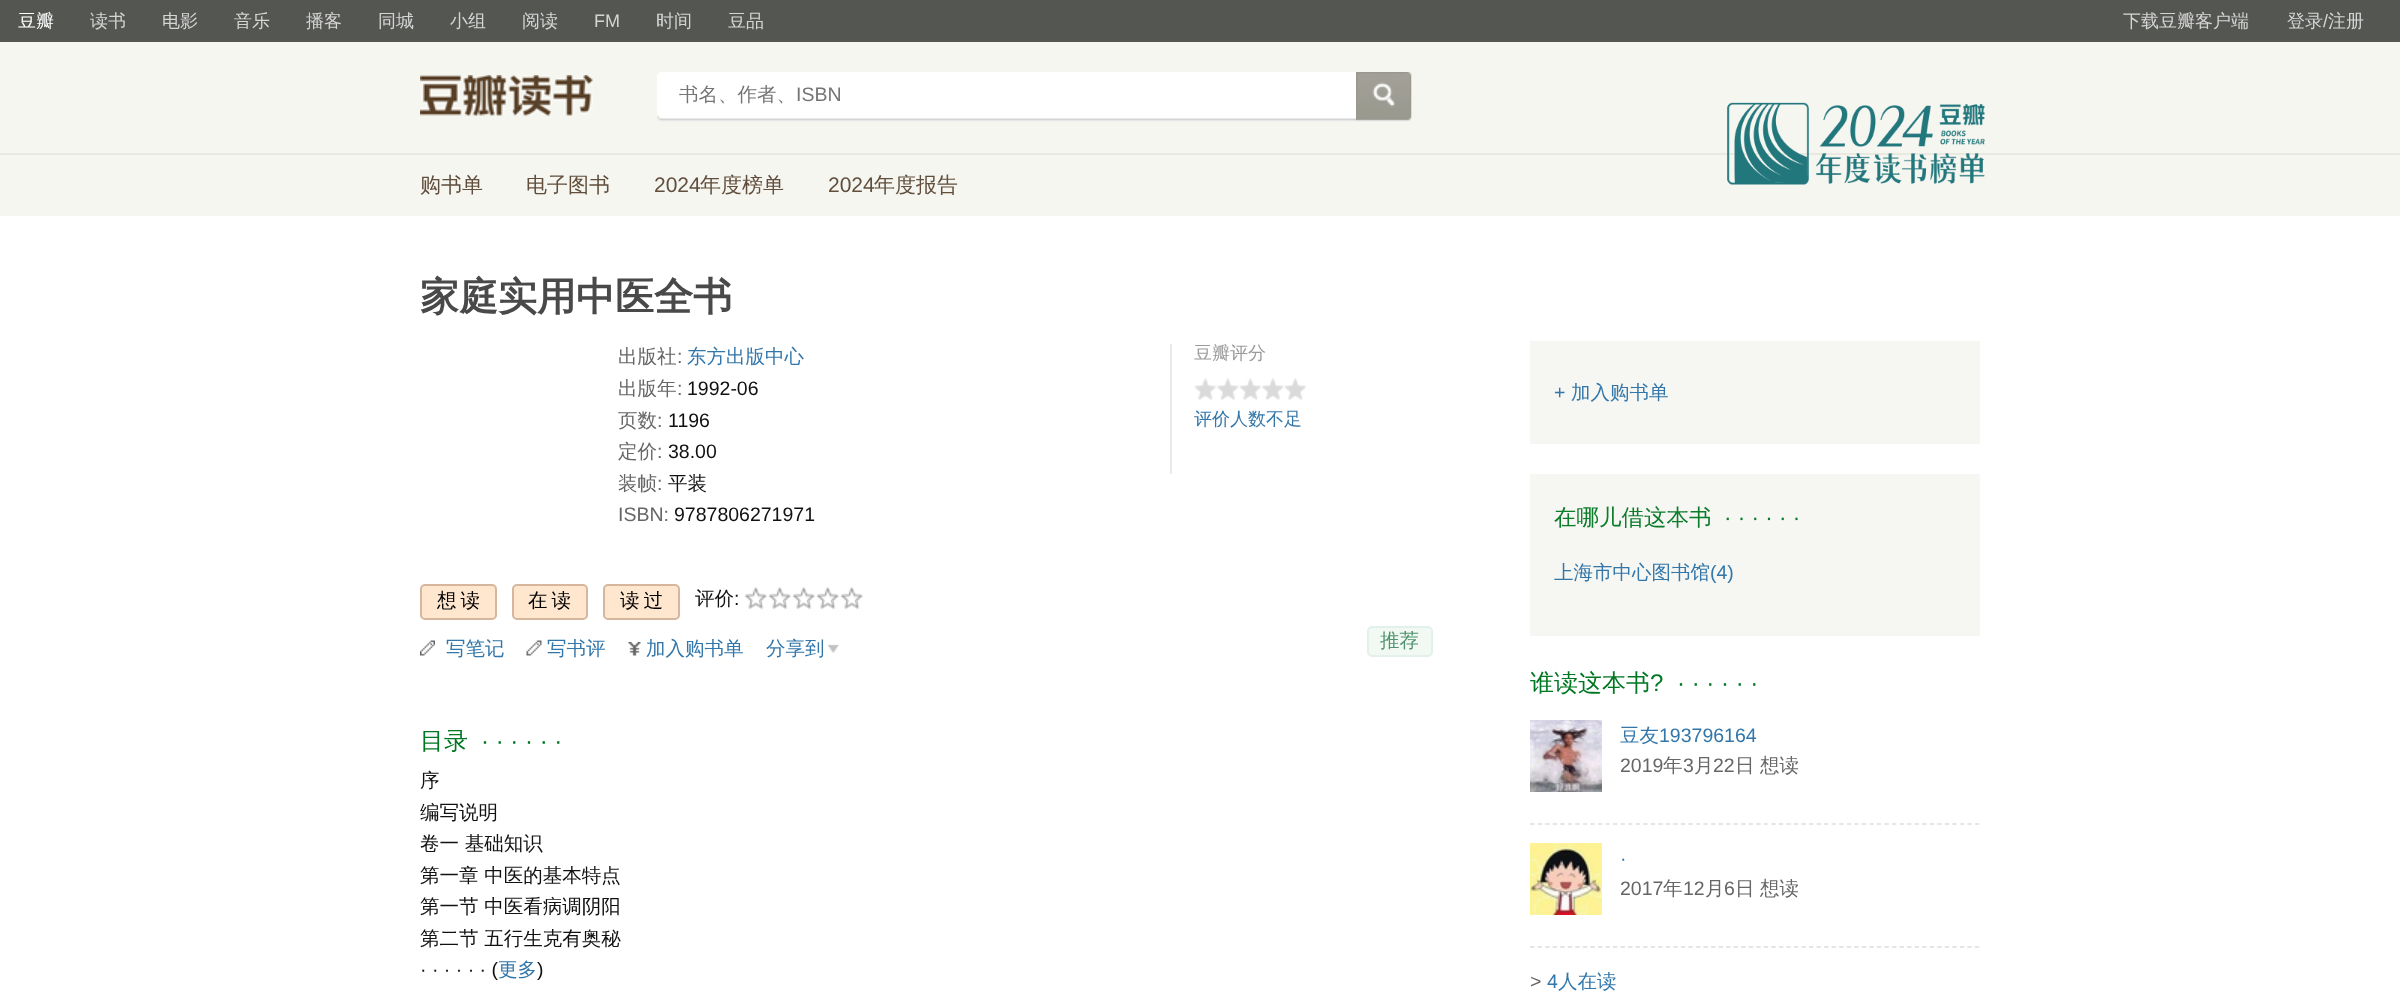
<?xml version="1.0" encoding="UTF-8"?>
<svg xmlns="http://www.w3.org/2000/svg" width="2400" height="1008">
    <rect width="100%" height="100%" fill="#FFFFFF"/>
    <rect x="0" y="0" width="2400" height="42" fill="#545652"/>
    <text x="18" y="27" font-family="WenQuanYi Zen Hei" font-size="18" font-weight="500" fill="#FFFFFF">豆瓣</text>
    <text x="90" y="27" font-family="WenQuanYi Zen Hei" font-size="18" font-weight="500" fill="#D5D5D5">读书</text>
    <text x="162" y="27" font-family="WenQuanYi Zen Hei" font-size="18" font-weight="500" fill="#D5D5D5">电影</text>
    <text x="234" y="27" font-family="WenQuanYi Zen Hei" font-size="18" font-weight="500" fill="#D5D5D5">音乐</text>
    <text x="306" y="27" font-family="WenQuanYi Zen Hei" font-size="18" font-weight="500" fill="#D5D5D5">播客</text>
    <text x="378" y="27" font-family="WenQuanYi Zen Hei" font-size="18" font-weight="500" fill="#D5D5D5">同城</text>
    <text x="450" y="27" font-family="WenQuanYi Zen Hei" font-size="18" font-weight="500" fill="#D5D5D5">小组</text>
    <text x="522" y="27" font-family="WenQuanYi Zen Hei" font-size="18" font-weight="500" fill="#D5D5D5">阅读</text>
    <text x="594" y="27" font-family="Liberation Sans" font-size="18" fill="#D5D5D5">FM</text>
    <text x="656" y="27" font-family="WenQuanYi Zen Hei" font-size="18" font-weight="500" fill="#D5D5D5">时间</text>
    <text x="728" y="27" font-family="WenQuanYi Zen Hei" font-size="18" font-weight="500" fill="#D5D5D5">豆品</text>
    <text x="2123" y="27" font-family="WenQuanYi Zen Hei" font-size="18" font-weight="500" fill="#D5D5D5">下载豆瓣客户端</text>
    <text x="2287" y="27" font-family="WenQuanYi Zen Hei" font-size="18" font-weight="500" fill="#D5D5D5">登录</text>
    <text x="2323" y="27" font-family="Liberation Sans" font-size="18" fill="#D5D5D5">/</text>
    <text x="2328" y="27" font-family="WenQuanYi Zen Hei" font-size="18" font-weight="500" fill="#D5D5D5">注册</text>
    <rect x="0" y="42" width="2400" height="174" fill="#F6F6F1"/>
    <rect x="0" y="153" width="2400" height="2" fill="#E9E9E2"/>
    <image x="420" y="75" width="173" height="41" href="img_01.png"/>
    <image x="657" y="72" width="705" height="50" href="img_02.png"/>
    <text x="679" y="101" font-family="WenQuanYi Zen Hei" font-size="19.5" font-weight="500" fill="#757575">书名、作者、</text>
    <text x="796" y="101" font-family="Liberation Sans" font-size="19.5" fill="#757575">ISBN</text>
    <image x="1356" y="72" width="56" height="50" href="img_03.png"/>
    <text x="420" y="192" font-family="WenQuanYi Zen Hei" font-size="21" font-weight="500" fill="#614E3C">购书单</text>
    <text x="526" y="192" font-family="WenQuanYi Zen Hei" font-size="21" font-weight="500" fill="#614E3C">电子图书</text>
    <text x="654" y="192" font-family="Liberation Sans" font-size="21" fill="#614E3C">2024</text>
    <text x="700" y="192" font-family="WenQuanYi Zen Hei" font-size="21" font-weight="500" fill="#614E3C">年度榜单</text>
    <text x="828" y="192" font-family="Liberation Sans" font-size="21" fill="#614E3C">2024</text>
    <text x="874" y="192" font-family="WenQuanYi Zen Hei" font-size="21" font-weight="500" fill="#614E3C">年度报告</text>
    <image x="1727" y="102" width="258" height="83" href="img_04.png"/>
    <text x="420" y="310" font-family="WenQuanYi Zen Hei" font-size="39" font-weight="700" fill="#494949">家庭实用中医全书</text>
    <text x="618" y="363" font-family="WenQuanYi Zen Hei" font-size="19.5" font-weight="500" fill="#666666">出版社</text>
    <text x="677" y="363" font-family="Liberation Sans" font-size="19.5" fill="#666666">:</text>
    <text x="687" y="363" font-family="WenQuanYi Zen Hei" font-size="19.5" font-weight="500" fill="#3377AA">东方出版中心</text>
    <text x="618" y="395" font-family="WenQuanYi Zen Hei" font-size="19.5" font-weight="500" fill="#666666">出版年</text>
    <text x="677" y="395" font-family="Liberation Sans" font-size="19.5" fill="#666666">:</text>
    <text x="687" y="395" font-family="Liberation Sans" font-size="19.5" fill="#111111">1992-06</text>
    <text x="618" y="427" font-family="WenQuanYi Zen Hei" font-size="19.5" font-weight="500" fill="#666666">页数</text>
    <text x="657" y="427" font-family="Liberation Sans" font-size="19.5" fill="#666666">:</text>
    <text x="668" y="427" font-family="Liberation Sans" font-size="19.5" fill="#111111">1196</text>
    <text x="618" y="458" font-family="WenQuanYi Zen Hei" font-size="19.5" font-weight="500" fill="#666666">定价</text>
    <text x="657" y="458" font-family="Liberation Sans" font-size="19.5" fill="#666666">:</text>
    <text x="668" y="458" font-family="Liberation Sans" font-size="19.5" fill="#111111">38.00</text>
    <text x="618" y="490" font-family="WenQuanYi Zen Hei" font-size="19.5" font-weight="500" fill="#666666">装帧</text>
    <text x="657" y="490" font-family="Liberation Sans" font-size="19.5" fill="#666666">:</text>
    <text x="668" y="490" font-family="WenQuanYi Zen Hei" font-size="19.5" font-weight="500" fill="#111111">平装</text>
    <text x="618" y="521" font-family="Liberation Sans" font-size="19.5" fill="#666666">ISBN:</text>
    <text x="674" y="521" font-family="Liberation Sans" font-size="19.5" fill="#111111">9787806271971</text>
    <rect x="1170" y="344" width="2" height="130" fill="#EAEAEA"/>
    <text x="1194" y="359" font-family="WenQuanYi Zen Hei" font-size="18" font-weight="500" fill="#9B9B9B">豆瓣评分</text>
    <image x="1194" y="378" width="113" height="23" href="img_05.png"/>
    <text x="1194" y="425" font-family="WenQuanYi Zen Hei" font-size="18" font-weight="500" fill="#3377AA">评价人数不足</text>
    <rect x="421" y="585" width="75" height="34" rx="4" fill="#FFE6CE" stroke="#D6B79D" stroke-width="2"/>
    <text x="437" y="607" font-family="WenQuanYi Zen Hei" font-size="19.5" font-weight="500" letter-spacing="4" fill="#000000">想读</text>
    <rect x="513" y="585" width="74" height="34" rx="4" fill="#FFE6CE" stroke="#D6B79D" stroke-width="2"/>
    <text x="528" y="607" font-family="WenQuanYi Zen Hei" font-size="19.5" font-weight="500" letter-spacing="4" fill="#000000">在读</text>
    <rect x="604" y="585" width="75" height="34" rx="4" fill="#FFE6CE" stroke="#D6B79D" stroke-width="2"/>
    <text x="620" y="607" font-family="WenQuanYi Zen Hei" font-size="19.5" font-weight="500" letter-spacing="4" fill="#000000">读过</text>
    <text x="695" y="605" font-family="WenQuanYi Zen Hei" font-size="19.5" font-weight="500" fill="#111111">评价</text>
    <text x="734" y="605" font-family="Liberation Sans" font-size="19.5" fill="#111111">:</text>
    <image x="744" y="586" width="23" height="24" href="img_06.png"/>
    <image x="768" y="586" width="23" height="24" href="img_07.png"/>
    <image x="792" y="586" width="23" height="24" href="img_07.png"/>
    <image x="816" y="586" width="23" height="24" href="img_07.png"/>
    <image x="840" y="586" width="23" height="24" href="img_07.png"/>
    <image x="420" y="640" width="15" height="16" href="img_08.png"/>
    <text x="446" y="655" font-family="WenQuanYi Zen Hei" font-size="19.5" font-weight="500" fill="#3377AA">写笔记</text>
    <image x="526" y="640" width="16" height="16" href="img_09.png"/>
    <text x="547" y="655" font-family="WenQuanYi Zen Hei" font-size="19.5" font-weight="500" fill="#3377AA">写书评</text>
    <image x="628" y="642" width="13" height="14" href="img_10.png"/>
    <text x="646" y="655" font-family="WenQuanYi Zen Hei" font-size="19.5" font-weight="500" fill="#3377AA">加入购书单</text>
    <text x="766" y="655" font-family="WenQuanYi Zen Hei" font-size="19.5" font-weight="500" fill="#3377AA">分享到</text>
    <image x="828" y="644" width="11" height="9" href="img_11.png"/>
    <rect x="1368" y="627" width="64" height="29" rx="4" fill="#F2F8F2" stroke="#E3F1ED" stroke-width="2"/>
    <text x="1380" y="647" font-family="WenQuanYi Zen Hei" font-size="19.5" font-weight="500" fill="#4F946E">推荐</text>
    <text x="420" y="749" font-family="WenQuanYi Zen Hei" font-size="24" font-weight="500" fill="#007722">目录</text>
    <text x="481" y="749" font-family="Liberation Sans" font-size="24" fill="#007722">· · · · · ·</text>
    <text font-family="WenQuanYi Zen Hei" font-size="19.5" font-weight="500" fill="#111111">
        <tspan x="420" y="787">序</tspan>
        <tspan x="420" y="819">编写说明</tspan>
        <tspan x="420" y="850">卷一 基础知识</tspan>
        <tspan x="420" y="882">第一章 中医的基本特点</tspan>
        <tspan x="420" y="913">第一节 中医看病调阴阳</tspan>
        <tspan x="420" y="945">第二节 五行生克有奥秘</tspan>
    </text>
    <text x="420" y="976" font-family="Liberation Sans" font-size="19.5" fill="#111111">· · · · · · (</text>
    <text x="498" y="976" font-family="WenQuanYi Zen Hei" font-size="19.5" font-weight="500" fill="#3377AA">更多</text>
    <text x="537" y="976" font-family="Liberation Sans" font-size="19.5" fill="#111111">)</text>
    <rect x="1530" y="341" width="450" height="103" fill="#F6F6F2"/>
    <text x="1554" y="399" font-family="Liberation Sans" font-size="19.5" fill="#3377AA">+</text>
    <text x="1571" y="399" font-family="WenQuanYi Zen Hei" font-size="19.5" font-weight="500" fill="#3377AA">加入购书单</text>
    <rect x="1530" y="474" width="450" height="162" fill="#F6F6F2"/>
    <text x="1554" y="525" font-family="WenQuanYi Zen Hei" font-size="22.5" font-weight="500" fill="#0B7C2A">在哪儿借这本书</text>
    <text x="1724" y="525" font-family="Liberation Sans" font-size="22.5" fill="#0B7C2A">· · · · · ·</text>
    <text x="1554" y="579" font-family="WenQuanYi Zen Hei" font-size="19.5" font-weight="500" fill="#3377AA">上海市中心图书馆</text>
    <text x="1710" y="579" font-family="Liberation Sans" font-size="19.5" fill="#3377AA">(4)</text>
    <text x="1530" y="691" font-family="WenQuanYi Zen Hei" font-size="24" font-weight="500" fill="#007722">谁读这本书</text>
    <text x="1650" y="691" font-family="Liberation Sans" font-size="24" fill="#007722">?</text>
    <text x="1677" y="691" font-family="Liberation Sans" font-size="24" fill="#007722">· · · · · ·</text>
    <image x="1530" y="720" width="72" height="72" href="img_12.png"/>
    <text x="1620" y="742" font-family="WenQuanYi Zen Hei" font-size="19.5" font-weight="500" fill="#3377AA">豆友</text>
    <text x="1659" y="742" font-family="Liberation Sans" font-size="19.5" fill="#3377AA">193796164</text>
    <text x="1620" y="772" font-family="Liberation Sans" font-size="19.5" fill="#666666">2019</text>
    <text x="1663" y="772" font-family="WenQuanYi Zen Hei" font-size="19.5" font-weight="500" fill="#666666">年</text>
    <text x="1683" y="772" font-family="Liberation Sans" font-size="19.5" fill="#666666">3</text>
    <text x="1694" y="772" font-family="WenQuanYi Zen Hei" font-size="19.5" font-weight="500" fill="#666666">月</text>
    <text x="1713" y="772" font-family="Liberation Sans" font-size="19.5" fill="#666666">22</text>
    <text x="1735" y="772" font-family="WenQuanYi Zen Hei" font-size="19.5" font-weight="500" fill="#666666">日</text>
    <text x="1760" y="772" font-family="WenQuanYi Zen Hei" font-size="19.5" font-weight="500" fill="#666666">想读</text>
    <path d="M 1530 824 H 1980" fill="none" stroke="#DDDDDD" stroke-width="1.5" stroke-dasharray="4.5 3.04"/>
    <image x="1530" y="843" width="72" height="72" href="img_13.png"/>
    <text x="1620" y="865" font-family="Liberation Sans" font-size="19.5" fill="#3377AA">·</text>
    <text x="1620" y="895" font-family="Liberation Sans" font-size="19.5" fill="#666666">2017</text>
    <text x="1663" y="895" font-family="WenQuanYi Zen Hei" font-size="19.5" font-weight="500" fill="#666666">年</text>
    <text x="1683" y="895" font-family="Liberation Sans" font-size="19.5" fill="#666666">12</text>
    <text x="1705" y="895" font-family="WenQuanYi Zen Hei" font-size="19.5" font-weight="500" fill="#666666">月</text>
    <text x="1724" y="895" font-family="Liberation Sans" font-size="19.5" fill="#666666">6</text>
    <text x="1735" y="895" font-family="WenQuanYi Zen Hei" font-size="19.5" font-weight="500" fill="#666666">日</text>
    <text x="1760" y="895" font-family="WenQuanYi Zen Hei" font-size="19.5" font-weight="500" fill="#666666">想读</text>
    <path d="M 1530 947 H 1980" fill="none" stroke="#DDDDDD" stroke-width="1.5" stroke-dasharray="4.5 3.04"/>
    <text x="1530" y="988" font-family="Liberation Sans" font-size="19.5" fill="#666666">&gt;</text>
    <text x="1547" y="988" font-family="Liberation Sans" font-size="19.5" fill="#3377AA">4</text>
    <text x="1558" y="988" font-family="WenQuanYi Zen Hei" font-size="19.5" font-weight="500" fill="#3377AA">人在读</text>
</svg>
